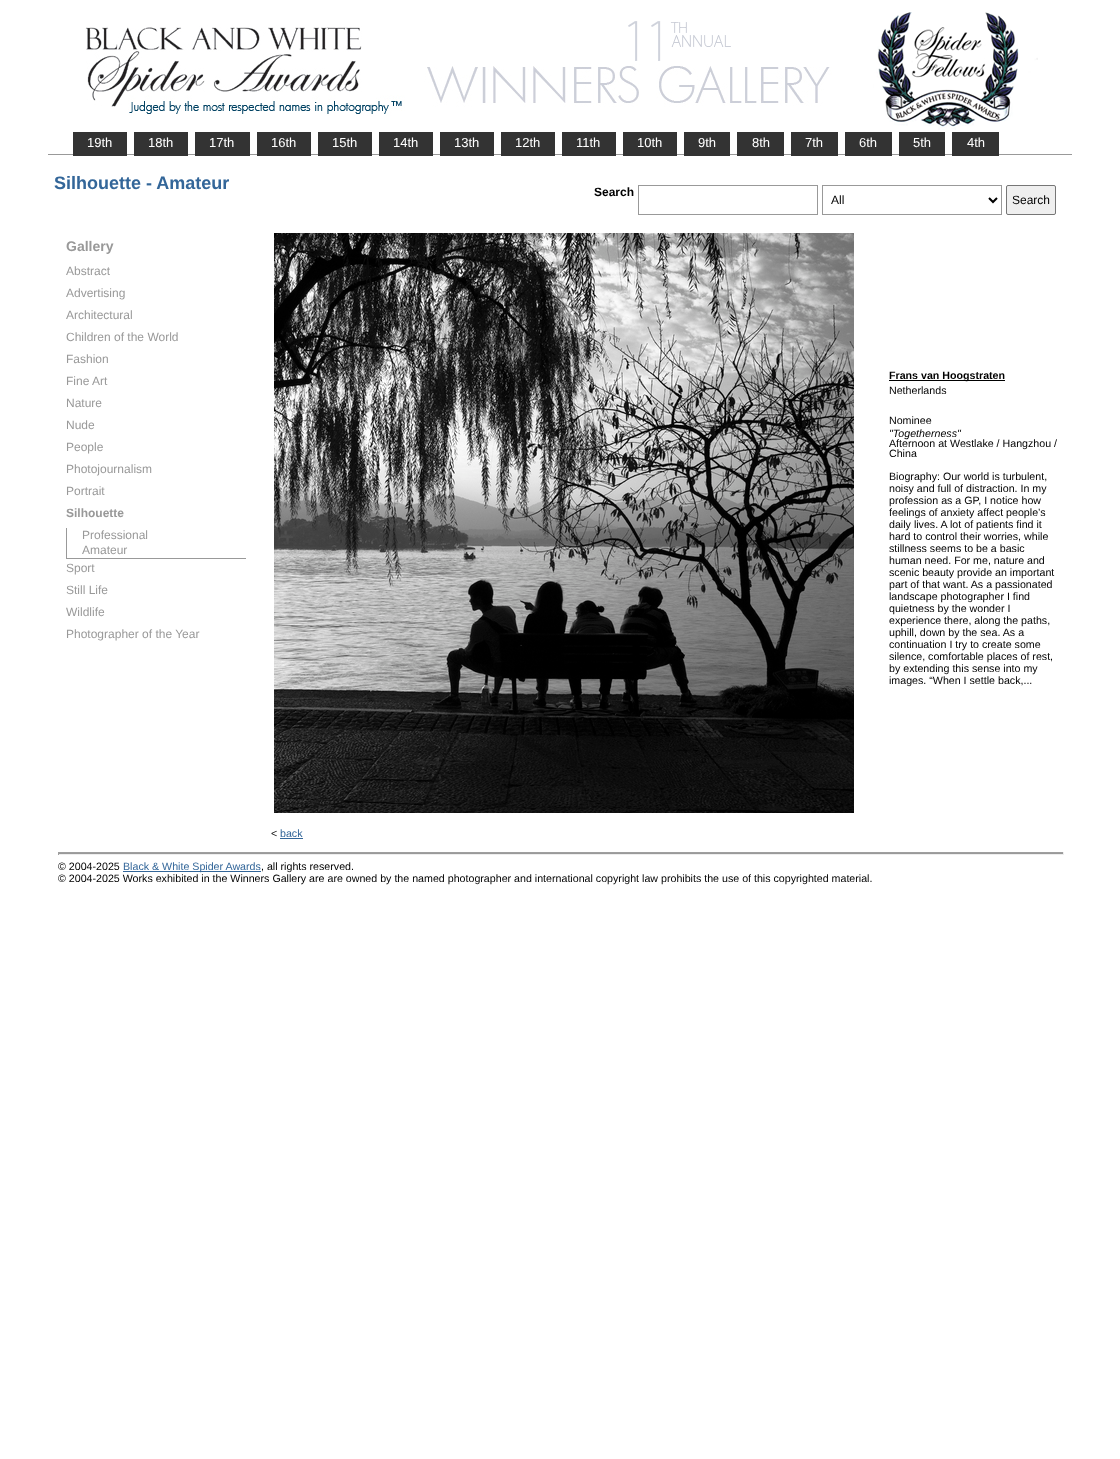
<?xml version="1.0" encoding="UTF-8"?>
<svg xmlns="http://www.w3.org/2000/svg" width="1120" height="1459">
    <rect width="100%" height="100%" fill="#FFFFFF"/>
    <image x="85" y="12" width="953" height="118" href="img_01.png"/>
    <rect x="48" y="154" width="1024" height="1" fill="#999999"/>
    <rect x="73" y="132" width="54" height="24" fill="#333333"/>
    <text x="87" y="147" font-family="Liberation Sans" font-size="13" fill="#FFFFFF">19th</text>
    <rect x="134" y="132" width="54" height="24" fill="#333333"/>
    <text x="148" y="147" font-family="Liberation Sans" font-size="13" fill="#FFFFFF">18th</text>
    <rect x="195" y="132" width="55" height="24" fill="#333333"/>
    <text x="209" y="147" font-family="Liberation Sans" font-size="13" fill="#FFFFFF">17th</text>
    <rect x="257" y="132" width="54" height="24" fill="#333333"/>
    <text x="271" y="147" font-family="Liberation Sans" font-size="13" fill="#FFFFFF">16th</text>
    <rect x="318" y="132" width="54" height="24" fill="#333333"/>
    <text x="332" y="147" font-family="Liberation Sans" font-size="13" fill="#FFFFFF">15th</text>
    <rect x="379" y="132" width="54" height="24" fill="#333333"/>
    <text x="393" y="147" font-family="Liberation Sans" font-size="13" fill="#FFFFFF">14th</text>
    <rect x="440" y="132" width="54" height="24" fill="#333333"/>
    <text x="454" y="147" font-family="Liberation Sans" font-size="13" fill="#FFFFFF">13th</text>
    <rect x="501" y="132" width="54" height="24" fill="#333333"/>
    <text x="515" y="147" font-family="Liberation Sans" font-size="13" fill="#FFFFFF">12th</text>
    <rect x="562" y="132" width="54" height="24" fill="#333333"/>
    <text x="576" y="147" font-family="Liberation Sans" font-size="13" fill="#FFFFFF">11th</text>
    <rect x="623" y="132" width="54" height="24" fill="#333333"/>
    <text x="637" y="147" font-family="Liberation Sans" font-size="13" fill="#FFFFFF">10th</text>
    <rect x="684" y="132" width="46" height="24" fill="#333333"/>
    <text x="698" y="147" font-family="Liberation Sans" font-size="13" fill="#FFFFFF">9th</text>
    <rect x="737" y="132" width="47" height="24" fill="#333333"/>
    <text x="752" y="147" font-family="Liberation Sans" font-size="13" fill="#FFFFFF">8th</text>
    <rect x="791" y="132" width="47" height="24" fill="#333333"/>
    <text x="805" y="147" font-family="Liberation Sans" font-size="13" fill="#FFFFFF">7th</text>
    <rect x="845" y="132" width="47" height="24" fill="#333333"/>
    <text x="859" y="147" font-family="Liberation Sans" font-size="13" fill="#FFFFFF">6th</text>
    <rect x="899" y="132" width="46" height="24" fill="#333333"/>
    <text x="913" y="147" font-family="Liberation Sans" font-size="13" fill="#FFFFFF">5th</text>
    <rect x="952" y="132" width="47" height="24" fill="#333333"/>
    <text x="967" y="147" font-family="Liberation Sans" font-size="13" fill="#FFFFFF">4th</text>
    <text x="54" y="189" font-family="Liberation Sans" font-size="18" font-weight="700" fill="#336699">Silhouette - Amateur</text>
    <text x="594" y="196" font-family="Liberation Sans" font-size="12" font-weight="700" fill="#000000">Search</text>
    <rect x="638.5" y="185.5" width="179" height="29" fill="none" stroke="#999999"/>
    <rect x="822.5" y="185.5" width="179" height="29" fill="none" stroke="#999999"/>
    <path d="M 989 198 L 993 202 L 997 198" fill="none" stroke="#000000" stroke-width="2"/>
    <text x="831" y="204" font-family="Liberation Sans" font-size="12" fill="#000000">All</text>
    <rect x="1006.5" y="185.5" width="49" height="29" rx="1.5" fill="#EFEFEF" stroke="#767676"/>
    <text x="1012" y="204" font-family="Liberation Sans" font-size="12" fill="#000000">Search</text>
    <text x="66" y="251" font-family="Liberation Sans" font-size="14" font-weight="700" fill="#999999">Gallery</text>
    <text font-family="Liberation Sans" font-size="12" fill="#999999">
        <tspan x="66" y="275">Abstract</tspan>
        <tspan x="66" y="297">Advertising</tspan>
        <tspan x="66" y="319">Architectural</tspan>
        <tspan x="66" y="341">Children of the World</tspan>
        <tspan x="66" y="363">Fashion</tspan>
        <tspan x="66" y="385">Fine Art</tspan>
        <tspan x="66" y="407">Nature</tspan>
        <tspan x="66" y="429">Nude</tspan>
        <tspan x="66" y="451">People</tspan>
        <tspan x="66" y="473">Photojournalism</tspan>
        <tspan x="66" y="495">Portrait</tspan>
    </text>
    <text x="66" y="517" font-family="Liberation Sans" font-size="12" font-weight="700" fill="#999999">Silhouette</text>
    <rect x="66" y="558" width="180" height="1" fill="#999999"/>
    <rect x="66" y="528" width="1" height="31" fill="#999999"/>
    <text font-family="Liberation Sans" font-size="12" fill="#999999">
        <tspan x="82" y="539">Professional</tspan>
        <tspan x="82" y="554">Amateur</tspan>
    </text>
    <text font-family="Liberation Sans" font-size="12" fill="#999999">
        <tspan x="66" y="572">Sport</tspan>
        <tspan x="66" y="594">Still Life</tspan>
        <tspan x="66" y="616">Wildlife</tspan>
        <tspan x="66" y="638">Photographer of the Year</tspan>
    </text>
    <image x="274" y="233" width="580" height="580" href="img_02.png"/>
    <rect x="889" y="380" width="116" height="1" fill="#000000"/>
    <text x="889" y="379" font-family="Liberation Sans" font-size="10.67" font-weight="700" fill="#000000">Frans van Hoogstraten</text>
    <text x="889" y="394" font-family="Liberation Sans" font-size="10.67" fill="#000000">Netherlands</text>
    <text x="889" y="424" font-family="Liberation Sans" font-size="10.67" fill="#000000">Nominee</text>
    <text x="889" y="437" font-family="Liberation Sans" font-size="10.67" font-style="italic" fill="#000000">"Togetherness"</text>
    <text font-family="Liberation Sans" font-size="10.67" fill="#000000">
        <tspan x="889" y="447">Afternoon at Westlake / Hangzhou /</tspan>
        <tspan x="889" y="457">China</tspan>
    </text>
    <text font-family="Liberation Sans" font-size="10.67" fill="#000000">
        <tspan x="889" y="480">Biography: Our world is turbulent,</tspan>
        <tspan x="889" y="492">noisy and full of distraction. In my</tspan>
        <tspan x="889" y="504">profession as a GP, I notice how</tspan>
        <tspan x="889" y="516">feelings of anxiety affect people’s</tspan>
        <tspan x="889" y="528">daily lives. A lot of patients find it</tspan>
        <tspan x="889" y="540">hard to control their worries, while</tspan>
        <tspan x="889" y="552">stillness seems to be a basic</tspan>
        <tspan x="889" y="564">human need. For me, nature and</tspan>
        <tspan x="889" y="576">scenic beauty provide an important</tspan>
        <tspan x="889" y="588">part of that want. As a passionated</tspan>
        <tspan x="889" y="600">landscape photographer I find</tspan>
        <tspan x="889" y="612">quietness by the wonder I</tspan>
        <tspan x="889" y="624">experience there, along the paths,</tspan>
        <tspan x="889" y="636">uphill, down by the sea. As a</tspan>
        <tspan x="889" y="648">continuation I try to create some</tspan>
        <tspan x="889" y="660">silence, comfortable places of rest,</tspan>
        <tspan x="889" y="672">by extending this sense into my</tspan>
        <tspan x="889" y="684">images. “When I settle back,...</tspan>
    </text>
    <text x="271" y="837" font-family="Liberation Sans" font-size="10.67" fill="#000000">&lt;</text>
    <text x="280" y="837" font-family="Liberation Sans" font-size="10.67" fill="#336699">back</text>
    <rect x="280" y="838" width="23" height="1" fill="#336699"/>
    <rect x="58" y="853" width="1006" height="1" fill="#999999"/>
    <rect x="58" y="852" width="1006" height="1" fill="#9F9F9F"/>
    <rect x="1063" y="852" width="1" height="3" fill="#EEEEEE"/>
    <rect x="58" y="854" width="1006" height="1" fill="#EEEEEE"/>
    <rect x="58" y="852" width="1" height="3" fill="#9F9F9F"/>
    <text x="58" y="870" font-family="Liberation Sans" font-size="10.67" fill="#000000">© 2004-2025</text>
    <rect x="123" y="871" width="138" height="1" fill="#336699"/>
    <text x="123" y="870" font-family="Liberation Sans" font-size="10.67" fill="#336699">Black &amp; White Spider Awards</text>
    <text x="261" y="870" font-family="Liberation Sans" font-size="10.67" fill="#000000">, all rights reserved.</text>
    <text x="58" y="882" font-family="Liberation Sans" font-size="10.67" fill="#000000">© 2004-2025 Works exhibited in the Winners Gallery are are owned by the named photographer and international copyright law prohibits the use of this copyrighted material.</text>
</svg>
